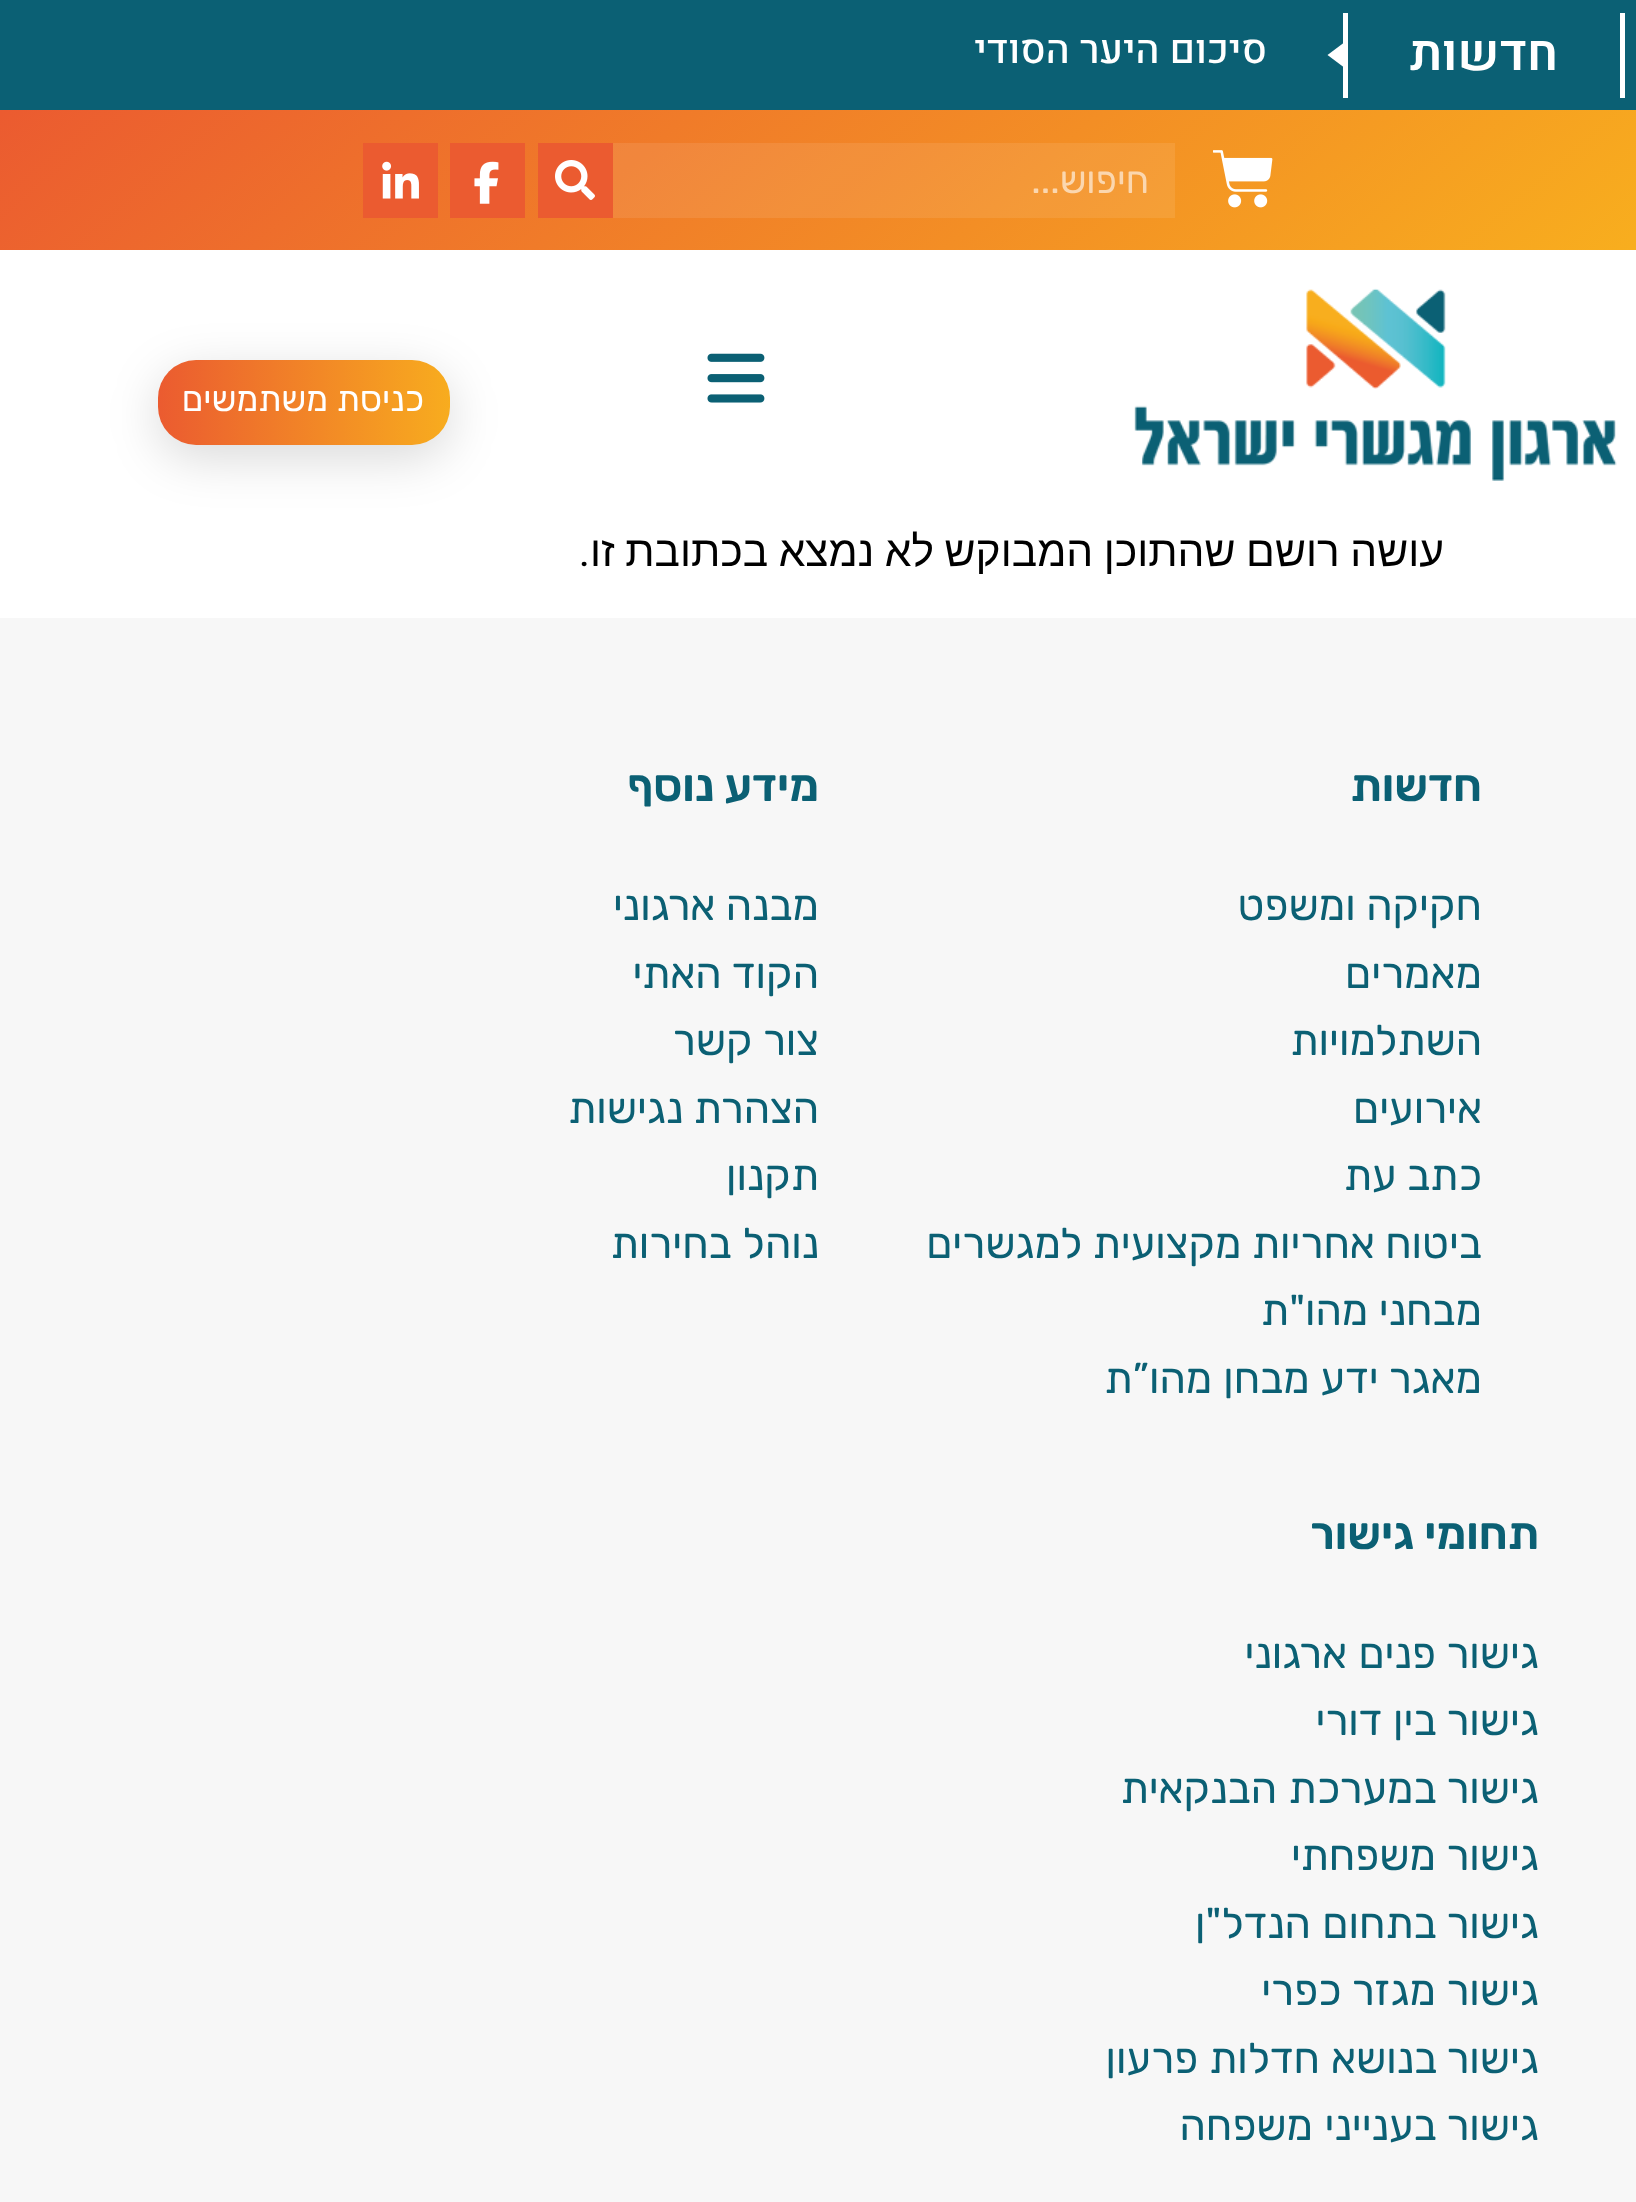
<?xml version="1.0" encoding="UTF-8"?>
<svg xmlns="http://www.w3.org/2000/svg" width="1636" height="2202">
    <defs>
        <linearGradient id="g1" gradientUnits="userSpaceOnUse" x1="432" y1="-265" x2="1206" y2="625"><stop offset="0" stop-color="#EB5B30"/><stop offset="1" stop-color="#F8AE1E"/></linearGradient>
        <filter id="blur1" x="-50%" y="-200%" width="200%" height="500%"><feGaussianBlur stdDeviation="25"/></filter>
        <linearGradient id="g2" gradientUnits="userSpaceOnUse" x1="158" y1="403" x2="743" y2="403"><stop offset="0" stop-color="#EB5B30"/><stop offset="0.51" stop-color="#F8AE1E"/><stop offset="1" stop-color="#EB5B30"/></linearGradient>
    </defs>
    <rect width="100%" height="100%" fill="#FFFFFF"/>
    <rect x="0" y="0" width="1636" height="110" fill="#0B6074"/>
    <rect x="1620" y="13" width="5" height="85" fill="#FFFFFF"/>
    <rect x="1343" y="13" width="5" height="85" fill="#FFFFFF"/>
    <text x="1558" y="70" font-family="Heebo" font-size="50" font-weight="600" direction="rtl" fill="#FFFFFF">חדשות</text>
    <path d="M 1347.5 40 V 70 L 1327.5 55 Z" fill="#FFFFFF"/>
    <text x="1267" y="63" font-family="Heebo" font-size="40" font-weight="500" direction="rtl" fill="#FFFFFF">סיכום היער הסודי</text>
    <rect x="0" y="110" width="1636" height="140" fill="url(#g1)"/>
    <image x="1213" y="150" width="60" height="58" href="img_01.png"/>
    <rect x="613" y="143" width="562" height="75" fill="#FFFFFF" fill-opacity="0.09"/>
    <text x="1149" y="193" font-family="Rubik" font-size="37.5" direction="rtl" fill="#FBD7AF">חיפוש...</text>
    <rect x="538" y="143" width="75" height="75" fill="#EB5B30"/>
    <image x="555" y="160" width="40" height="40" href="img_02.png"/>
    <rect x="450" y="143" width="75" height="75" fill="#EB5B30"/>
    <image x="474" y="161" width="25" height="43" href="img_03.png"/>
    <rect x="363" y="143" width="75" height="75" fill="#EB5B30"/>
    <image x="382" y="161" width="37" height="38" href="img_04.png"/>
    <image x="1134" y="288" width="483" height="193" href="img_05.png"/>
    <image x="707" y="353" width="58" height="50" href="img_06.png"/>
    <rect x="158" y="373" width="292" height="85" rx="38" fill="#000000" fill-opacity="0.15" filter="url(#blur1)"/>
    <rect x="158" y="360" width="292" height="85" rx="38" fill="url(#g2)"/>
    <text x="424" y="411" font-family="Rubik" font-size="35" direction="rtl" fill="#FFFFFF">כניסת משתמשים</text>
    <text x="1444" y="566" word-spacing="-1.25" font-family="Liberation Sans" font-size="42.5" direction="rtl" fill="#000000">עושה רושם שהתוכן המבוקש לא נמצא בכתובת זו</text>
    <text x="590" y="566" font-family="Roboto" font-size="42.5" direction="rtl" fill="#000000">.</text>
    <rect x="0" y="618" width="1636" height="1584" fill="#F7F7F7"/>
    <text x="1482" y="801" font-family="Rubik" font-size="45" font-weight="600" direction="rtl" fill="#0B6074">חדשות</text>
    <text font-family="Rubik" font-size="42.5" direction="rtl" fill="#0B6074">
        <tspan x="1482" y="920">חקיקה ומשפט</tspan>
        <tspan x="1482" y="988">מאמרים</tspan>
        <tspan x="1482" y="1055">השתלמויות</tspan>
        <tspan x="1482" y="1123">אירועים</tspan>
        <tspan x="1482" y="1190">כתב עת</tspan>
        <tspan x="1482" y="1258">ביטוח אחריות מקצועית למגשרים</tspan>
        <tspan x="1482" y="1325">מבחני מהו"ת</tspan>
        <tspan x="1482" y="1393" word-spacing="0.5">מאגר ידע מבחן מהו”ת</tspan>
    </text>
    <text x="819" y="801" font-family="Rubik" font-size="45" font-weight="600" direction="rtl" fill="#0B6074">מידע נוסף</text>
    <text font-family="Rubik" font-size="42.5" direction="rtl" fill="#0B6074">
        <tspan x="819" y="920">מבנה ארגוני</tspan>
        <tspan x="819" y="988" word-spacing="1">הקוד האתי</tspan>
        <tspan x="819" y="1055" word-spacing="1">צור קשר</tspan>
        <tspan x="819" y="1123">הצהרת נגישות</tspan>
        <tspan x="819" y="1190">תקנון</tspan>
        <tspan x="819" y="1258" word-spacing="2">נוהל בחירות</tspan>
    </text>
    <text x="1539" y="1549" word-spacing="1" font-family="Rubik" font-size="45" font-weight="600" direction="rtl" fill="#0B6074">תחומי גישור</text>
    <text font-family="Rubik" font-size="42.5" direction="rtl" fill="#0B6074">
        <tspan x="1539" y="1668" word-spacing="1">גישור פנים ארגוני</tspan>
        <tspan x="1539" y="1735" word-spacing="1">גישור בין דורי</tspan>
        <tspan x="1539" y="1803" word-spacing="1">גישור במערכת הבנקאית</tspan>
        <tspan x="1539" y="1870" word-spacing="1">גישור משפחתי</tspan>
        <tspan x="1539" y="1938" word-spacing="1">גישור בתחום הנדל"ן</tspan>
        <tspan x="1539" y="2005" word-spacing="1">גישור מגזר כפרי</tspan>
        <tspan x="1539" y="2073" word-spacing="0.5">גישור בנושא חדלות פרעון</tspan>
        <tspan x="1539" y="2140" word-spacing="1">גישור בענייני משפחה</tspan>
    </text>
</svg>
